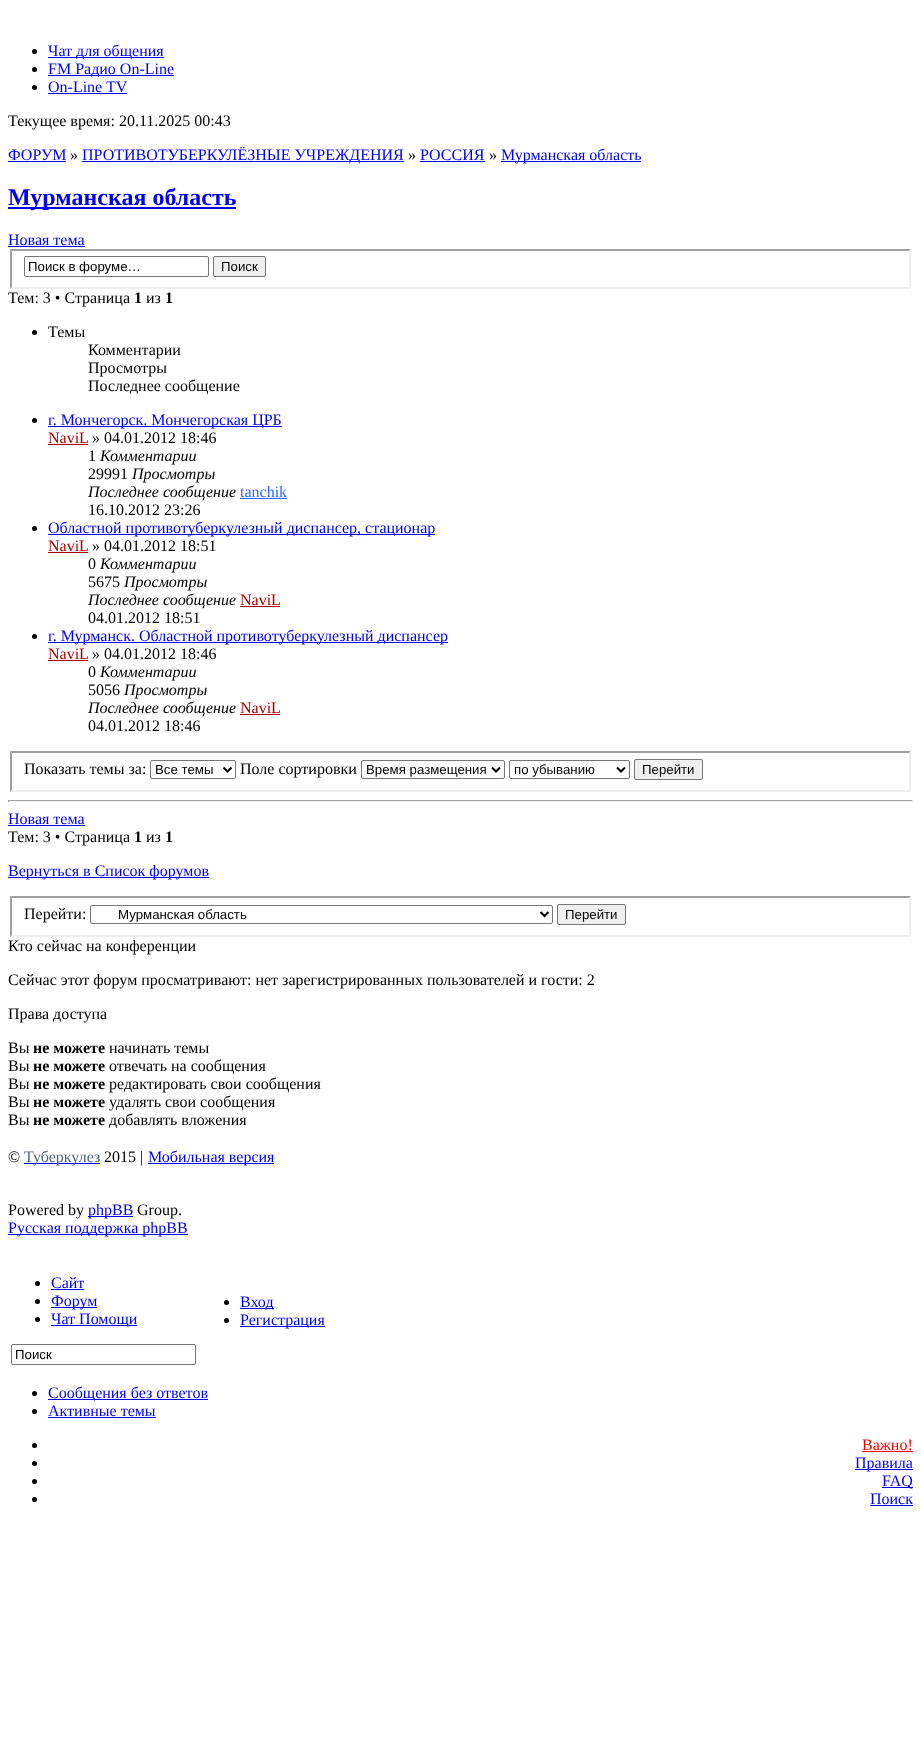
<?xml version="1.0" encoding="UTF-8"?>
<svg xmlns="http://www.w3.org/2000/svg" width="921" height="1748">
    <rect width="100%" height="100%" fill="#FFFFFF"/>
    <circle cx="34.5" cy="51.5" r="2.5" fill="#000000"/>
    <rect x="48" y="57" width="116" height="1" fill="#0000EE"/>
    <text x="48" y="56" font-family="Liberation Serif" font-size="16" fill="#0000EE">Чат для общения</text>
    <circle cx="34.5" cy="69.5" r="2.5" fill="#000000"/>
    <rect x="48" y="75" width="126" height="1" fill="#0000EE"/>
    <text x="48" y="74" font-family="Liberation Serif" font-size="16" fill="#0000EE">FM Радио On-Line</text>
    <circle cx="34.5" cy="87.5" r="2.5" fill="#000000"/>
    <text x="48" y="92" font-family="Liberation Serif" font-size="16" fill="#0000EE">On-Line TV</text>
    <rect x="48" y="93" width="79" height="1" fill="#0000EE"/>
    <text x="8" y="126" font-family="Liberation Serif" font-size="16" fill="#000000">Текущее время: 20.11.2025 00:43</text>
    <text x="8" y="160" font-family="Liberation Serif" font-size="16" fill="#0000EE">ФОРУМ</text>
    <rect x="8" y="161" width="58" height="1" fill="#0000EE"/>
    <text x="70" y="160" font-family="Liberation Serif" font-size="16" fill="#000000">»</text>
    <rect x="82" y="161" width="322" height="1" fill="#0000EE"/>
    <text x="82" y="160" font-family="Liberation Serif" font-size="16" fill="#0000EE">ПРОТИВОТУБЕРКУЛЁЗНЫЕ УЧРЕЖДЕНИЯ</text>
    <text x="408" y="160" font-family="Liberation Serif" font-size="16" fill="#000000">»</text>
    <text x="420" y="160" font-family="Liberation Serif" font-size="16" fill="#0000EE">РОССИЯ</text>
    <rect x="420" y="161" width="65" height="1" fill="#0000EE"/>
    <text x="489" y="160" font-family="Liberation Serif" font-size="16" fill="#000000">»</text>
    <rect x="501" y="161" width="140" height="1" fill="#0000EE"/>
    <text x="501" y="160" font-family="Liberation Serif" font-size="16" fill="#0000EE">Мурманская область</text>
    <rect x="8" y="207" width="228" height="2" fill="#0000EE"/>
    <text x="8" y="205" font-family="Liberation Serif" font-size="24" font-weight="700" fill="#0000EE">Мурманская область</text>
    <text x="8" y="245" font-family="Liberation Serif" font-size="16" fill="#0000EE">Новая тема</text>
    <rect x="8" y="246" width="77" height="1" fill="#0000EE"/>
    <path d="M 10 249 H 911 L 909 251 H 12 Z" fill="#9F9F9F"/>
    <path d="M 911 249 V 289 L 909 287 V 251 Z" fill="#EFEFEF"/>
    <path d="M 911 289 H 10 L 12 287 H 909 Z" fill="#EFEFEF"/>
    <path d="M 10 289 V 249 L 12 251 V 287 Z" fill="#9F9F9F"/>
    <rect x="24.5" y="256.5" width="184" height="20" rx="1.5" fill="none" stroke="#767676"/>
    <text x="28" y="271" font-family="Liberation Sans" font-size="13.25" fill="#000000">Поиск в форуме…</text>
    <rect x="213.5" y="256.5" width="52" height="20" rx="1.5" fill="#EFEFEF" stroke="#767676"/>
    <text x="221" y="271" font-family="Liberation Sans" font-size="13.25" fill="#000000">Поиск</text>
    <text x="8" y="303" font-family="Liberation Serif" font-size="16" fill="#000000">Тем: 3 • Страница</text>
    <text x="134" y="303" font-family="Liberation Serif" font-size="16" font-weight="700" fill="#000000">1</text>
    <text x="146" y="303" font-family="Liberation Serif" font-size="16" fill="#000000">из</text>
    <text x="165" y="303" font-family="Liberation Serif" font-size="16" font-weight="700" fill="#000000">1</text>
    <circle cx="34.5" cy="332.5" r="2.5" fill="#000000"/>
    <text x="48" y="337" font-family="Liberation Serif" font-size="16" fill="#000000">Темы</text>
    <text font-family="Liberation Serif" font-size="16" fill="#000000">
        <tspan x="88" y="355">Комментарии</tspan>
        <tspan x="88" y="373">Просмотры</tspan>
        <tspan x="88" y="391">Последнее сообщение</tspan>
    </text>
    <circle cx="34.5" cy="420.5" r="2.5" fill="#000000"/>
    <rect x="48" y="426" width="234" height="1" fill="#0000EE"/>
    <text x="48" y="425" font-family="Liberation Serif" font-size="16" fill="#0000EE">г. Мончегорск. Мончегорская ЦРБ</text>
    <text x="48" y="443" font-family="Liberation Serif" font-size="16" fill="#AA0000">NaviL</text>
    <rect x="48" y="444" width="40" height="1" fill="#AA0000"/>
    <text x="92" y="443" font-family="Liberation Serif" font-size="16" fill="#000000">» 04.01.2012 18:46</text>
    <text x="88" y="461" font-family="Liberation Serif" font-size="16" fill="#000000">1</text>
    <text x="100" y="461" font-family="Liberation Serif" font-size="16" font-style="italic" fill="#000000">Комментарии</text>
    <text x="88" y="479" font-family="Liberation Serif" font-size="16" fill="#000000">29991</text>
    <text x="132" y="479" font-family="Liberation Serif" font-size="16" font-style="italic" fill="#000000">Просмотры</text>
    <text x="88" y="497" font-family="Liberation Serif" font-size="16" font-style="italic" fill="#000000">Последнее сообщение</text>
    <text x="240" y="497" font-family="Liberation Serif" font-size="16" fill="#3366FF">tanchik</text>
    <rect x="240" y="498" width="47" height="1" fill="#3366FF"/>
    <text x="88" y="515" font-family="Liberation Serif" font-size="16" fill="#000000">16.10.2012 23:26</text>
    <circle cx="34.5" cy="528.5" r="2.5" fill="#000000"/>
    <rect x="48" y="534" width="387" height="1" fill="#0000EE"/>
    <text x="48" y="533" font-family="Liberation Serif" font-size="16" fill="#0000EE">Областной противотуберкулезный диспансер, стационар</text>
    <text x="48" y="551" font-family="Liberation Serif" font-size="16" fill="#AA0000">NaviL</text>
    <rect x="48" y="552" width="40" height="1" fill="#AA0000"/>
    <text x="92" y="551" font-family="Liberation Serif" font-size="16" fill="#000000">» 04.01.2012 18:51</text>
    <text x="88" y="569" font-family="Liberation Serif" font-size="16" fill="#000000">0</text>
    <text x="100" y="569" font-family="Liberation Serif" font-size="16" font-style="italic" fill="#000000">Комментарии</text>
    <text x="88" y="587" font-family="Liberation Serif" font-size="16" fill="#000000">5675</text>
    <text x="124" y="587" font-family="Liberation Serif" font-size="16" font-style="italic" fill="#000000">Просмотры</text>
    <text x="88" y="605" font-family="Liberation Serif" font-size="16" font-style="italic" fill="#000000">Последнее сообщение</text>
    <text x="240" y="605" font-family="Liberation Serif" font-size="16" fill="#AA0000">NaviL</text>
    <rect x="240" y="606" width="40" height="1" fill="#AA0000"/>
    <text x="88" y="623" font-family="Liberation Serif" font-size="16" fill="#000000">04.01.2012 18:51</text>
    <circle cx="34.5" cy="636.5" r="2.5" fill="#000000"/>
    <rect x="48" y="642" width="400" height="1" fill="#0000EE"/>
    <text x="48" y="641" font-family="Liberation Serif" font-size="16" fill="#0000EE">г. Мурманск. Областной противотуберкулезный диспансер</text>
    <text x="48" y="659" font-family="Liberation Serif" font-size="16" fill="#AA0000">NaviL</text>
    <rect x="48" y="660" width="40" height="1" fill="#AA0000"/>
    <text x="92" y="659" font-family="Liberation Serif" font-size="16" fill="#000000">» 04.01.2012 18:46</text>
    <text x="88" y="677" font-family="Liberation Serif" font-size="16" fill="#000000">0</text>
    <text x="100" y="677" font-family="Liberation Serif" font-size="16" font-style="italic" fill="#000000">Комментарии</text>
    <text x="88" y="695" font-family="Liberation Serif" font-size="16" fill="#000000">5056</text>
    <text x="124" y="695" font-family="Liberation Serif" font-size="16" font-style="italic" fill="#000000">Просмотры</text>
    <text x="88" y="713" font-family="Liberation Serif" font-size="16" font-style="italic" fill="#000000">Последнее сообщение</text>
    <text x="240" y="713" font-family="Liberation Serif" font-size="16" fill="#AA0000">NaviL</text>
    <rect x="240" y="714" width="40" height="1" fill="#AA0000"/>
    <text x="88" y="731" font-family="Liberation Serif" font-size="16" fill="#000000">04.01.2012 18:46</text>
    <path d="M 10 751 H 911 L 909 753 H 12 Z" fill="#9F9F9F"/>
    <path d="M 911 751 V 792 L 909 790 V 753 Z" fill="#EFEFEF"/>
    <path d="M 911 792 H 10 L 12 790 H 909 Z" fill="#EFEFEF"/>
    <path d="M 10 792 V 751 L 12 753 V 790 Z" fill="#9F9F9F"/>
    <text x="24" y="774" font-family="Liberation Serif" font-size="16" fill="#000000">Показать темы за:</text>
    <rect x="150.5" y="760.5" width="85" height="18" rx="1.5" fill="none" stroke="#767676"/>
    <path d="M 223.5 767.5 L 227.5 771.5 L 231.5 767.5" fill="none" stroke="#000000" stroke-width="2"/>
    <text x="155" y="774" font-family="Liberation Sans" font-size="13.25" fill="#000000">Все темы</text>
    <text x="240" y="774" font-family="Liberation Serif" font-size="16" fill="#000000">Поле сортировки</text>
    <rect x="361.5" y="760.5" width="143" height="18" rx="1.5" fill="none" stroke="#767676"/>
    <path d="M 492 767.5 L 496 771.5 L 500 767.5" fill="none" stroke="#000000" stroke-width="2"/>
    <text x="366" y="774" font-family="Liberation Sans" font-size="13.25" fill="#000000">Время размещения</text>
    <rect x="509.5" y="760.5" width="120" height="18" rx="1.5" fill="none" stroke="#767676"/>
    <path d="M 617 767.5 L 621 771.5 L 625 767.5" fill="none" stroke="#000000" stroke-width="2"/>
    <text x="514" y="774" font-family="Liberation Sans" font-size="13.25" fill="#000000">по убыванию</text>
    <rect x="634.5" y="759.5" width="68" height="20" rx="1.5" fill="#EFEFEF" stroke="#767676"/>
    <text x="642" y="774" font-family="Liberation Sans" font-size="13.25" fill="#000000">Перейти</text>
    <rect x="8" y="800" width="905" height="1" fill="#9F9F9F"/>
    <rect x="912" y="800" width="1" height="2" fill="#EEEEEE"/>
    <rect x="8" y="801" width="905" height="1" fill="#EEEEEE"/>
    <rect x="8" y="800" width="1" height="2" fill="#9F9F9F"/>
    <text x="8" y="824" font-family="Liberation Serif" font-size="16" fill="#0000EE">Новая тема</text>
    <rect x="8" y="825" width="77" height="1" fill="#0000EE"/>
    <text x="8" y="842" font-family="Liberation Serif" font-size="16" fill="#000000">Тем: 3 • Страница</text>
    <text x="134" y="842" font-family="Liberation Serif" font-size="16" font-weight="700" fill="#000000">1</text>
    <text x="146" y="842" font-family="Liberation Serif" font-size="16" fill="#000000">из</text>
    <text x="165" y="842" font-family="Liberation Serif" font-size="16" font-weight="700" fill="#000000">1</text>
    <rect x="8" y="877" width="201" height="1" fill="#0000EE"/>
    <text x="8" y="876" font-family="Liberation Serif" font-size="16" fill="#0000EE">Вернуться в Список форумов</text>
    <path d="M 10 896 H 911 L 909 898 H 12 Z" fill="#9F9F9F"/>
    <path d="M 911 896 V 937 L 909 935 V 898 Z" fill="#EFEFEF"/>
    <path d="M 911 937 H 10 L 12 935 H 909 Z" fill="#EFEFEF"/>
    <path d="M 10 937 V 896 L 12 898 V 935 Z" fill="#9F9F9F"/>
    <text x="24" y="919" font-family="Liberation Serif" font-size="16" fill="#000000">Перейти:</text>
    <rect x="90.5" y="905.5" width="462" height="18" rx="1.5" fill="none" stroke="#767676"/>
    <path d="M 540.5 912 L 544.5 916 L 548.5 912" fill="none" stroke="#000000" stroke-width="2"/>
    <text x="118" y="919" font-family="Liberation Sans" font-size="13.25" fill="#000000">Мурманская область</text>
    <rect x="557.5" y="904.5" width="68" height="20" rx="1.5" fill="#EFEFEF" stroke="#767676"/>
    <text x="565" y="919" font-family="Liberation Sans" font-size="13.25" fill="#000000">Перейти</text>
    <text x="8" y="951" font-family="Liberation Serif" font-size="16" fill="#000000">Кто сейчас на конференции</text>
    <text x="8" y="985" font-family="Liberation Serif" font-size="16" fill="#000000">Сейчас этот форум просматривают: нет зарегистрированных пользователей и гости: 2</text>
    <text x="8" y="1019" font-family="Liberation Serif" font-size="16" fill="#000000">Права доступа</text>
    <text x="8" y="1053" font-family="Liberation Serif" font-size="16" fill="#000000">Вы</text>
    <text x="33" y="1053" font-family="Liberation Serif" font-size="16" font-weight="700" fill="#000000">не можете</text>
    <text x="109" y="1053" font-family="Liberation Serif" font-size="16" fill="#000000">начинать темы</text>
    <text x="8" y="1071" font-family="Liberation Serif" font-size="16" fill="#000000">Вы</text>
    <text x="33" y="1071" font-family="Liberation Serif" font-size="16" font-weight="700" fill="#000000">не можете</text>
    <text x="109" y="1071" font-family="Liberation Serif" font-size="16" fill="#000000">отвечать на сообщения</text>
    <text x="8" y="1089" font-family="Liberation Serif" font-size="16" fill="#000000">Вы</text>
    <text x="33" y="1089" font-family="Liberation Serif" font-size="16" font-weight="700" fill="#000000">не можете</text>
    <text x="109" y="1089" font-family="Liberation Serif" font-size="16" fill="#000000">редактировать свои сообщения</text>
    <text x="8" y="1107" font-family="Liberation Serif" font-size="16" fill="#000000">Вы</text>
    <text x="33" y="1107" font-family="Liberation Serif" font-size="16" font-weight="700" fill="#000000">не можете</text>
    <text x="109" y="1107" font-family="Liberation Serif" font-size="16" fill="#000000">удалять свои сообщения</text>
    <text x="8" y="1125" font-family="Liberation Serif" font-size="16" fill="#000000">Вы</text>
    <text x="33" y="1125" font-family="Liberation Serif" font-size="16" font-weight="700" fill="#000000">не можете</text>
    <text x="109" y="1125" font-family="Liberation Serif" font-size="16" fill="#000000">добавлять вложения</text>
    <text x="8" y="1162" font-family="Liberation Serif" font-size="16" fill="#000000">©</text>
    <rect x="24" y="1163" width="76" height="1" fill="#0000EE"/>
    <text x="24" y="1162" font-family="Liberation Serif" font-size="16" fill="#536482">Туберкулез</text>
    <text x="104" y="1162" font-family="Liberation Serif" font-size="16" fill="#000000">2015 |</text>
    <rect x="148" y="1163" width="126" height="1" fill="#0000EE"/>
    <text x="148" y="1162" font-family="Liberation Serif" font-size="16" fill="#0000EE">Мобильная версия</text>
    <text x="8" y="1215" font-family="Liberation Serif" font-size="16" fill="#000000">Powered by</text>
    <rect x="88" y="1216" width="45" height="1" fill="#0000EE"/>
    <text x="88" y="1215" font-family="Liberation Serif" font-size="16" fill="#0000EE">phpBB</text>
    <text x="137" y="1215" font-family="Liberation Serif" font-size="16" fill="#000000">Group.</text>
    <rect x="8" y="1234" width="180" height="1" fill="#0000EE"/>
    <text x="8" y="1233" font-family="Liberation Serif" font-size="16" fill="#0000EE">Русская поддержка phpBB</text>
    <circle cx="37.5" cy="1283.5" r="2.5" fill="#000000"/>
    <text x="51" y="1288" font-family="Liberation Serif" font-size="16" fill="#0000EE">Сайт</text>
    <rect x="51" y="1289" width="33" height="1" fill="#0000EE"/>
    <circle cx="37.5" cy="1301.5" r="2.5" fill="#000000"/>
    <rect x="51" y="1307" width="46" height="1" fill="#0000EE"/>
    <text x="51" y="1306" font-family="Liberation Serif" font-size="16" fill="#0000EE">Форум</text>
    <circle cx="37.5" cy="1319.5" r="2.5" fill="#000000"/>
    <rect x="51" y="1325" width="86" height="1" fill="#0000EE"/>
    <text x="51" y="1324" font-family="Liberation Serif" font-size="16" fill="#0000EE">Чат Помощи</text>
    <rect x="11.5" y="1344.5" width="184" height="20" rx="1.5" fill="none" stroke="#767676"/>
    <text x="15" y="1359" font-family="Liberation Sans" font-size="13.25" fill="#000000">Поиск</text>
    <circle cx="226.5" cy="1302.5" r="2.5" fill="#000000"/>
    <rect x="240" y="1308" width="34" height="1" fill="#0000EE"/>
    <text x="240" y="1307" font-family="Liberation Serif" font-size="16" fill="#0000EE">Вход</text>
    <circle cx="226.5" cy="1320.5" r="2.5" fill="#000000"/>
    <rect x="240" y="1326" width="85" height="1" fill="#0000EE"/>
    <text x="240" y="1325" font-family="Liberation Serif" font-size="16" fill="#0000EE">Регистрация</text>
    <circle cx="34.5" cy="1393.5" r="2.5" fill="#000000"/>
    <rect x="48" y="1399" width="160" height="1" fill="#0000EE"/>
    <text x="48" y="1398" font-family="Liberation Serif" font-size="16" fill="#0000EE">Сообщения без ответов</text>
    <circle cx="34.5" cy="1411.5" r="2.5" fill="#000000"/>
    <text x="48" y="1416" font-family="Liberation Serif" font-size="16" fill="#0000EE">Активные темы</text>
    <rect x="48" y="1417" width="108" height="1" fill="#0000EE"/>
    <circle cx="34.5" cy="1445.5" r="2.5" fill="#000000"/>
    <text x="862" y="1450" font-family="Liberation Serif" font-size="16" fill="#FF0000">Важно!</text>
    <rect x="862" y="1451" width="51" height="1" fill="#FF0000"/>
    <circle cx="34.5" cy="1463.5" r="2.5" fill="#000000"/>
    <rect x="855" y="1469" width="58" height="1" fill="#0000EE"/>
    <text x="855" y="1468" font-family="Liberation Serif" font-size="16" fill="#0000EE">Правила</text>
    <circle cx="34.5" cy="1481.5" r="2.5" fill="#000000"/>
    <rect x="882" y="1487" width="31" height="1" fill="#0000EE"/>
    <text x="882" y="1486" font-family="Liberation Serif" font-size="16" fill="#0000EE">FAQ</text>
    <circle cx="34.5" cy="1499.5" r="2.5" fill="#000000"/>
    <text x="870" y="1504" font-family="Liberation Serif" font-size="16" fill="#0000EE">Поиск</text>
    <rect x="870" y="1505" width="43" height="1" fill="#0000EE"/>
</svg>
